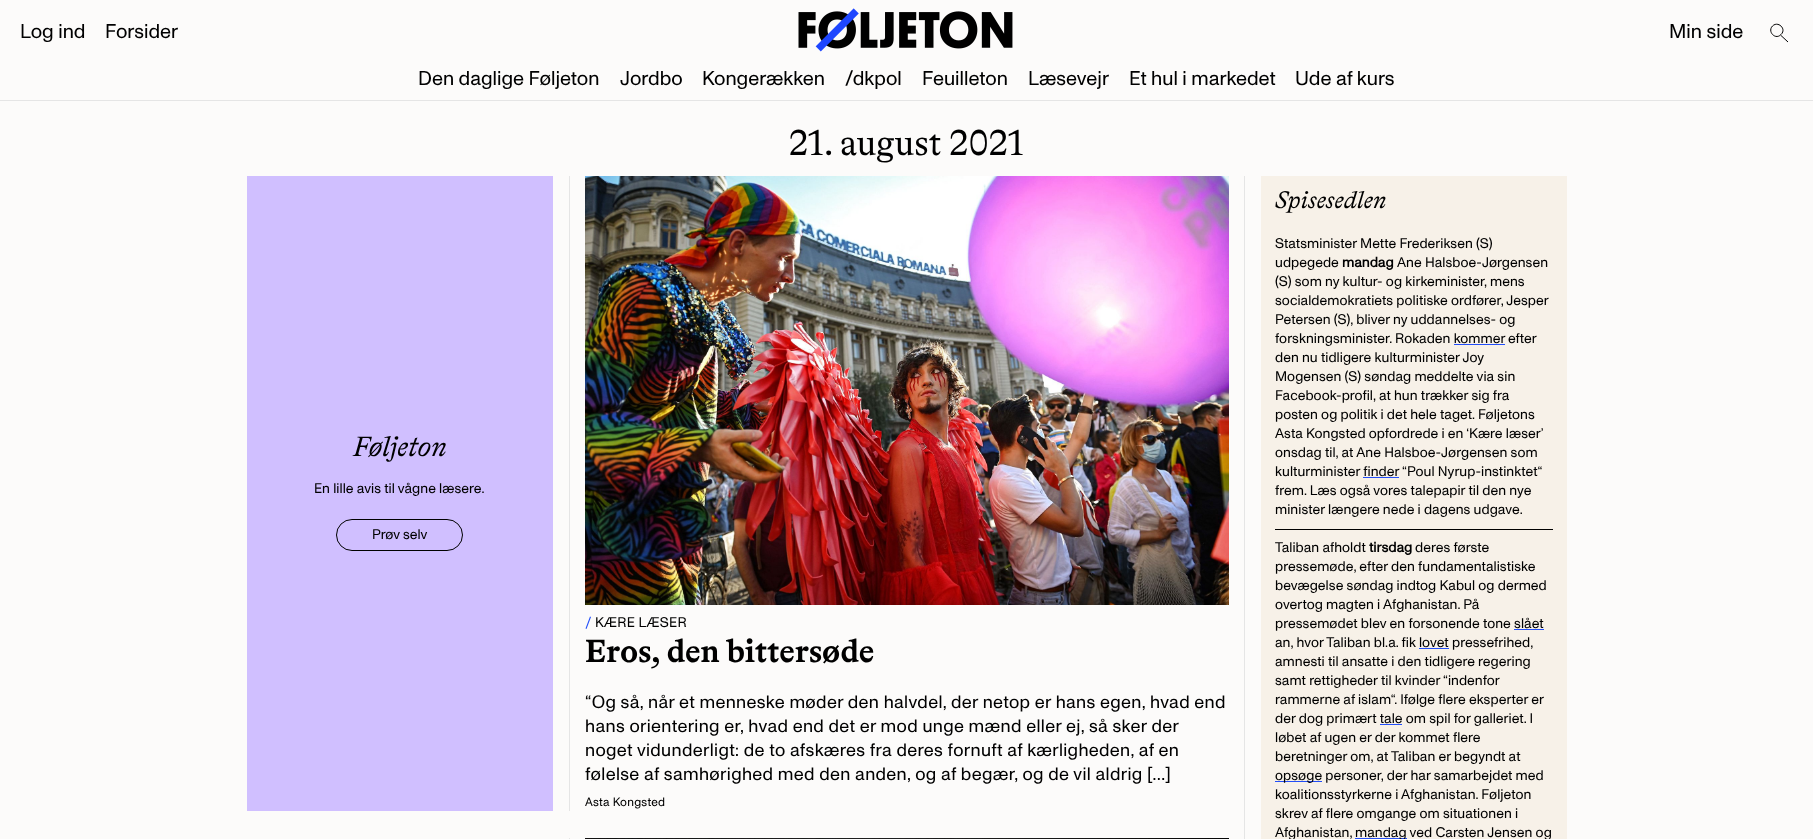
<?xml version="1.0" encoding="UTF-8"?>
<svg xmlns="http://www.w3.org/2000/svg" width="1813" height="839">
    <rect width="100%" height="100%" fill="#FCFBFA"/>
    <rect x="0" y="100" width="1813" height="1" fill="#E5E5E5"/>
    <text x="20" y="38" font-family="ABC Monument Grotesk" font-size="20" fill="#000000">Log ind</text>
    <text x="105" y="38" font-family="ABC Monument Grotesk" font-size="20" fill="#000000">Forsider</text>
    <image x="798" y="8" width="215" height="44" href="img_01.png"/>
    <text x="1669" y="38" font-family="ABC Monument Grotesk" font-size="20" fill="#000000">Min side</text>
    <path d="M 1781 34.5 C 1775.5 40.5 1767 31.5 1772.5 26 C 1778 20.5 1787 29 1781 34.5 Z M 1781 35.5 L 1788 42" fill="none" stroke="#000000"/>
    <text x="418" y="85" font-family="ABC Monument Grotesk" font-size="20" fill="#000000">Den daglige Føljeton</text>
    <text x="620" y="85" font-family="ABC Monument Grotesk" font-size="20" fill="#000000">Jordbo</text>
    <text x="702" y="85" font-family="ABC Monument Grotesk" font-size="20" fill="#000000">Kongerækken</text>
    <text x="845" y="85" font-family="ABC Monument Grotesk" font-size="20" fill="#000000">/dkpol</text>
    <text x="922" y="85" font-family="ABC Monument Grotesk" font-size="20" fill="#000000">Feuilleton</text>
    <text x="1028" y="85" font-family="ABC Monument Grotesk" font-size="20" fill="#000000">Læsevejr</text>
    <text x="1129" y="85" font-family="ABC Monument Grotesk" font-size="20" fill="#000000">Et hul i markedet</text>
    <text x="1295" y="85" font-family="ABC Monument Grotesk" font-size="20" fill="#000000">Ude af kurs</text>
    <text x="789" y="155" font-family="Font" font-size="36" fill="#000000">21. august 2021</text>
    <rect x="247" y="176" width="306" height="635" fill="#D0BFFF"/>
    <text x="353" y="456" font-family="Font" font-size="28" font-style="italic" fill="#000000">Føljeton</text>
    <text x="314" y="493" font-family="ABC Monument Grotesk" font-size="14" letter-spacing="0.05" fill="#000000">En lille avis til vågne læsere.</text>
    <rect x="336.5" y="519.5" width="126" height="31" rx="15.5" fill="none" stroke="#000000"/>
    <text x="372" y="539" font-family="ABC Monument Grotesk" font-size="14" fill="#000000">Prøv selv</text>
    <rect x="1244" y="176" width="1" height="663" fill="#E5E5E5"/>
    <rect x="569" y="176" width="1" height="635" fill="#E5E5E5"/>
    <image x="585" y="176" width="644" height="429" href="img_02.png"/>
    <path d="M 586.5 629 L 591 617 L 590 616.5 L 585.5 628.5 Z" fill="#224EF9"/>
    <text x="595" y="627" font-family="ABC Monument Grotesk" font-size="14" letter-spacing="0.25" fill="#000000">KÆRE LÆSER</text>
    <text x="585" y="662" font-family="Font" font-size="32" font-weight="700" fill="#000000">Eros, den bittersøde</text>
    <text font-family="ABC Monument Grotesk" font-size="18" letter-spacing="0.35" fill="#000000">
        <tspan x="585" y="708">“Og så, når et menneske møder den halvdel, der netop er hans egen, hvad end</tspan>
        <tspan x="585" y="732">hans orientering er, hvad end det er mod unge mænd eller ej, så sker der</tspan>
        <tspan x="585" y="756">noget vidunderligt: de to afskæres fra deres fornuft af kærligheden, af en</tspan>
        <tspan x="585" y="780">følelse af samhørighed med den anden, og af begær, og de vil aldrig […]</tspan>
    </text>
    <text x="585" y="806" font-family="ABC Monument Grotesk" font-size="12" letter-spacing="0.25" fill="#000000">Asta Kongsted</text>
    <rect x="569" y="838" width="1" height="1" fill="#E5E5E5"/>
    <image x="585" y="838" width="644" height="1" href="img_03.png"/>
    <rect x="1261" y="176" width="306" height="663" fill="#F7F1E8"/>
    <text x="1275" y="208" font-family="Font" font-size="24" font-style="italic" fill="#000000">Spisesedlen</text>
    <rect x="1275" y="529" width="278" height="1" fill="#000000"/>
    <text font-family="ABC Monument Grotesk" font-size="14" letter-spacing="0.05" fill="#000000">
        <tspan x="1275" y="248">Statsminister Mette Frederiksen (S)</tspan>
        <tspan x="1275" y="267">udpegede</tspan>
    </text>
    <text x="1342" y="267" font-family="ABC Monument Grotesk" font-size="14" font-weight="700" letter-spacing="0.05" fill="#000000">mandag</text>
    <text x="1397" y="267" font-family="ABC Monument Grotesk" font-size="14" letter-spacing="0.05" fill="#000000">Ane Halsboe-Jørgensen</text>
    <text font-family="ABC Monument Grotesk" font-size="14" letter-spacing="0.05" fill="#000000">
        <tspan x="1275" y="286">(S) som ny kultur- og kirkeminister, mens</tspan>
        <tspan x="1275" y="305">socialdemokratiets politiske ordfører, Jesper</tspan>
        <tspan x="1275" y="324">Petersen (S), bliver ny uddannelses- og</tspan>
        <tspan x="1275" y="343">forskningsminister. Rokaden kommer</tspan>
    </text>
    <rect x="1454" y="344" width="51" height="1" fill="#224EF9"/>
    <text x="1508" y="343" font-family="ABC Monument Grotesk" font-size="14" letter-spacing="0.05" fill="#000000">efter</text>
    <text font-family="ABC Monument Grotesk" font-size="14" letter-spacing="0.05" fill="#000000">
        <tspan x="1275" y="362">den nu tidligere kulturminister Joy</tspan>
        <tspan x="1275" y="381">Mogensen (S) søndag meddelte via sin</tspan>
        <tspan x="1275" y="400">Facebook-profil, at hun trækker sig fra</tspan>
        <tspan x="1275" y="419">posten og politik i det hele taget. Føljetons</tspan>
        <tspan x="1275" y="438">Asta Kongsted opfordrede i en ‘Kære læser’</tspan>
        <tspan x="1275" y="457">onsdag til, at Ane Halsboe-Jørgensen som</tspan>
        <tspan x="1275" y="476">kulturminister finder</tspan>
    </text>
    <rect x="1363" y="477" width="36" height="1" fill="#224EF9"/>
    <text x="1402" y="476" font-family="ABC Monument Grotesk" font-size="14" letter-spacing="0.05" fill="#000000">“Poul Nyrup-instinktet“</text>
    <text font-family="ABC Monument Grotesk" font-size="14" letter-spacing="0.05" fill="#000000">
        <tspan x="1275" y="495">frem. Læs også vores talepapir til den nye</tspan>
        <tspan x="1275" y="514">minister længere nede i dagens udgave.</tspan>
    </text>
    <text x="1275" y="552" font-family="ABC Monument Grotesk" font-size="14" letter-spacing="0.05" fill="#000000">Taliban afholdt</text>
    <text x="1369" y="552" font-family="ABC Monument Grotesk" font-size="14" font-weight="700" letter-spacing="0.05" fill="#000000">tirsdag</text>
    <text x="1415" y="552" font-family="ABC Monument Grotesk" font-size="14" letter-spacing="0.05" fill="#000000">deres første</text>
    <text font-family="ABC Monument Grotesk" font-size="14" letter-spacing="0.05" fill="#000000">
        <tspan x="1275" y="571">pressemøde, efter den fundamentalistiske</tspan>
        <tspan x="1275" y="590">bevægelse søndag indtog Kabul og dermed</tspan>
        <tspan x="1275" y="609">overtog magten i Afghanistan. På</tspan>
        <tspan x="1275" y="628">pressemødet blev en forsonende tone slået</tspan>
    </text>
    <rect x="1514" y="629" width="30" height="1" fill="#224EF9"/>
    <text x="1275" y="647" font-family="ABC Monument Grotesk" font-size="14" letter-spacing="0.05" fill="#000000">an, hvor Taliban bl.a. fik lovet</text>
    <rect x="1419" y="648" width="30" height="1" fill="#224EF9"/>
    <text x="1452" y="647" font-family="ABC Monument Grotesk" font-size="14" letter-spacing="0.05" fill="#000000">pressefrihed,</text>
    <text font-family="ABC Monument Grotesk" font-size="14" letter-spacing="0.05" fill="#000000">
        <tspan x="1275" y="666">amnesti til ansatte i den tidligere regering</tspan>
        <tspan x="1275" y="685">samt rettigheder til kvinder “indenfor</tspan>
        <tspan x="1275" y="704">rammerne af islam“. Ifølge flere eksperter er</tspan>
        <tspan x="1275" y="723">der dog primært tale om spil for galleriet. I</tspan>
    </text>
    <rect x="1380" y="724" width="22" height="1" fill="#224EF9"/>
    <text font-family="ABC Monument Grotesk" font-size="14" letter-spacing="0.05" fill="#000000">
        <tspan x="1275" y="742">løbet af ugen er der kommet flere</tspan>
        <tspan x="1275" y="761">beretninger om, at Taliban er begyndt at</tspan>
    </text>
    <rect x="1275" y="781" width="47" height="1" fill="#224EF9"/>
    <text font-family="ABC Monument Grotesk" font-size="14" letter-spacing="0.05" fill="#000000">
        <tspan x="1275" y="780">opsøge personer, der har samarbejdet med</tspan>
        <tspan x="1275" y="799">koalitionsstyrkerne i Afghanistan. Føljeton</tspan>
        <tspan x="1275" y="818">skrev af flere omgange om situationen i</tspan>
        <tspan x="1275" y="837">Afghanistan,</tspan>
    </text>
    <rect x="1355" y="838" width="52" height="1" fill="#224EF9"/>
    <text x="1355" y="837" font-family="ABC Monument Grotesk" font-size="14" letter-spacing="0.05" fill="#000000">mandag ved Carsten Jensen og</text>
</svg>
